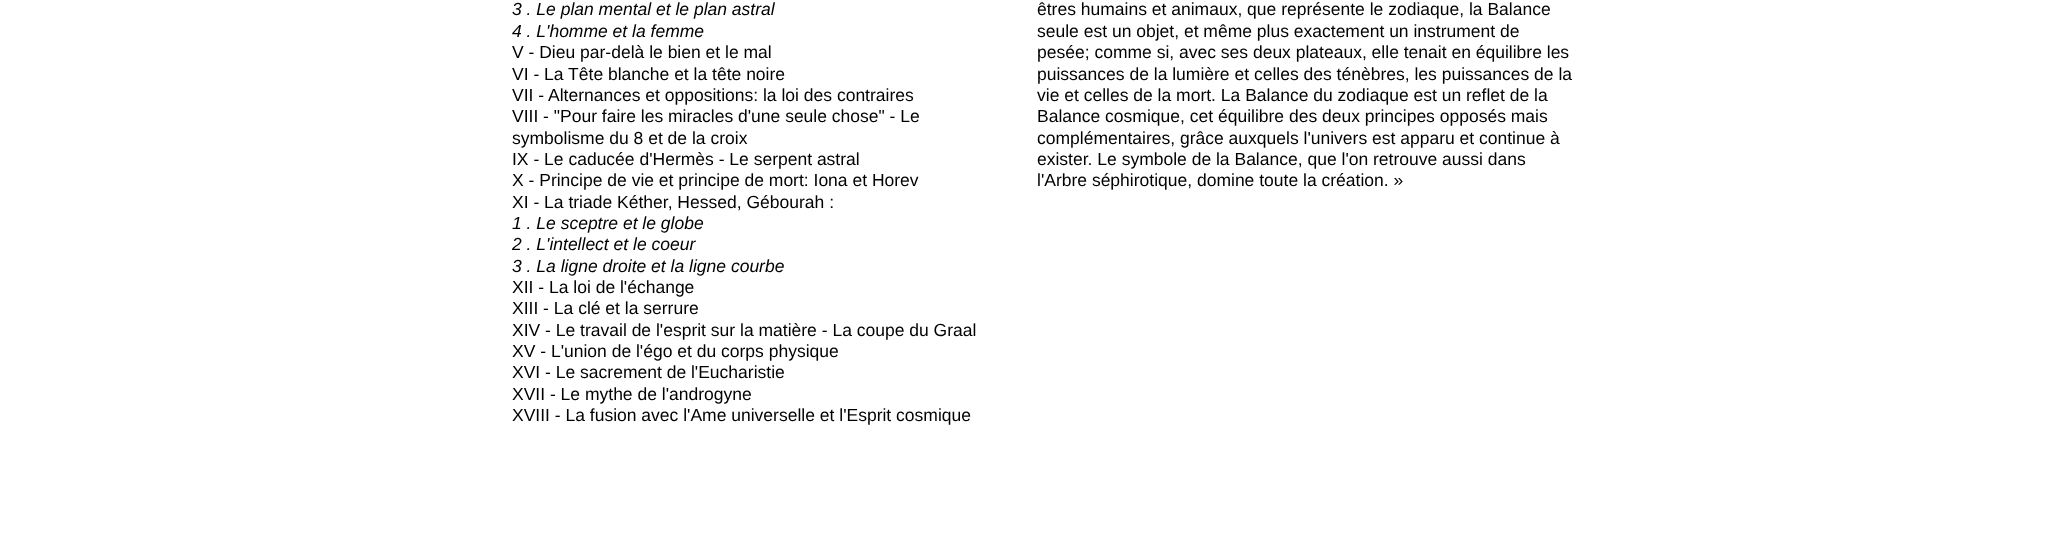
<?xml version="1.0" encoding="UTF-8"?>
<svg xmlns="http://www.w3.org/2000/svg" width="2061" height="537">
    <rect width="100%" height="100%" fill="#FFFFFF"/>
    <text font-family="Liberation Sans" font-size="17.5" font-style="italic" fill="#000000">
        <tspan x="512" y="15">3 . Le plan mental et le plan astral</tspan>
        <tspan x="512" y="37">4 . L'homme et la femme</tspan>
    </text>
    <text font-family="Liberation Sans" font-size="17.5" fill="#000000">
        <tspan x="512" y="58">V - Dieu par-delà le bien et le mal</tspan>
        <tspan x="512" y="80">VI - La Tête blanche et la tête noire</tspan>
        <tspan x="512" y="101">VII - Alternances et oppositions: la loi des contraires</tspan>
        <tspan x="512" y="122">VIII - "Pour faire les miracles d'une seule chose" - Le</tspan>
        <tspan x="512" y="144">symbolisme du 8 et de la croix</tspan>
        <tspan x="512" y="165">IX - Le caducée d'Hermès - Le serpent astral</tspan>
        <tspan x="512" y="186">X - Principe de vie et principe de mort: Iona et Horev</tspan>
        <tspan x="512" y="208">XI - La triade Kéther, Hessed, Gébourah :</tspan>
    </text>
    <text font-family="Liberation Sans" font-size="17.5" font-style="italic" fill="#000000">
        <tspan x="512" y="229">1 . Le sceptre et le globe</tspan>
        <tspan x="512" y="250">2 . L'intellect et le coeur</tspan>
        <tspan x="512" y="272">3 . La ligne droite et la ligne courbe</tspan>
    </text>
    <text font-family="Liberation Sans" font-size="17.5" fill="#000000">
        <tspan x="512" y="293">XII - La loi de l'échange</tspan>
        <tspan x="512" y="314">XIII - La clé et la serrure</tspan>
        <tspan x="512" y="336">XIV - Le travail de l'esprit sur la matière - La coupe du Graal</tspan>
        <tspan x="512" y="357">XV - L'union de l'égo et du corps physique</tspan>
        <tspan x="512" y="378">XVI - Le sacrement de l'Eucharistie</tspan>
        <tspan x="512" y="400">XVII - Le mythe de l'androgyne</tspan>
        <tspan x="512" y="421">XVIII - La fusion avec l'Ame universelle et l'Esprit cosmique</tspan>
    </text>
    <text font-family="Liberation Sans" font-size="17.5" fill="#000000">
        <tspan x="1037" y="15">êtres humains et animaux, que représente le zodiaque, la Balance</tspan>
        <tspan x="1037" y="37">seule est un objet, et même plus exactement un instrument de</tspan>
        <tspan x="1037" y="58">pesée; comme si, avec ses deux plateaux, elle tenait en équilibre les</tspan>
        <tspan x="1037" y="80">puissances de la lumière et celles des ténèbres, les puissances de la</tspan>
        <tspan x="1037" y="101">vie et celles de la mort. La Balance du zodiaque est un reflet de la</tspan>
        <tspan x="1037" y="122">Balance cosmique, cet équilibre des deux principes opposés mais</tspan>
        <tspan x="1037" y="144">complémentaires, grâce auxquels l'univers est apparu et continue à</tspan>
        <tspan x="1037" y="165">exister. Le symbole de la Balance, que l'on retrouve aussi dans</tspan>
        <tspan x="1037" y="186">l'Arbre séphirotique, domine toute la création. »</tspan>
    </text>
</svg>
